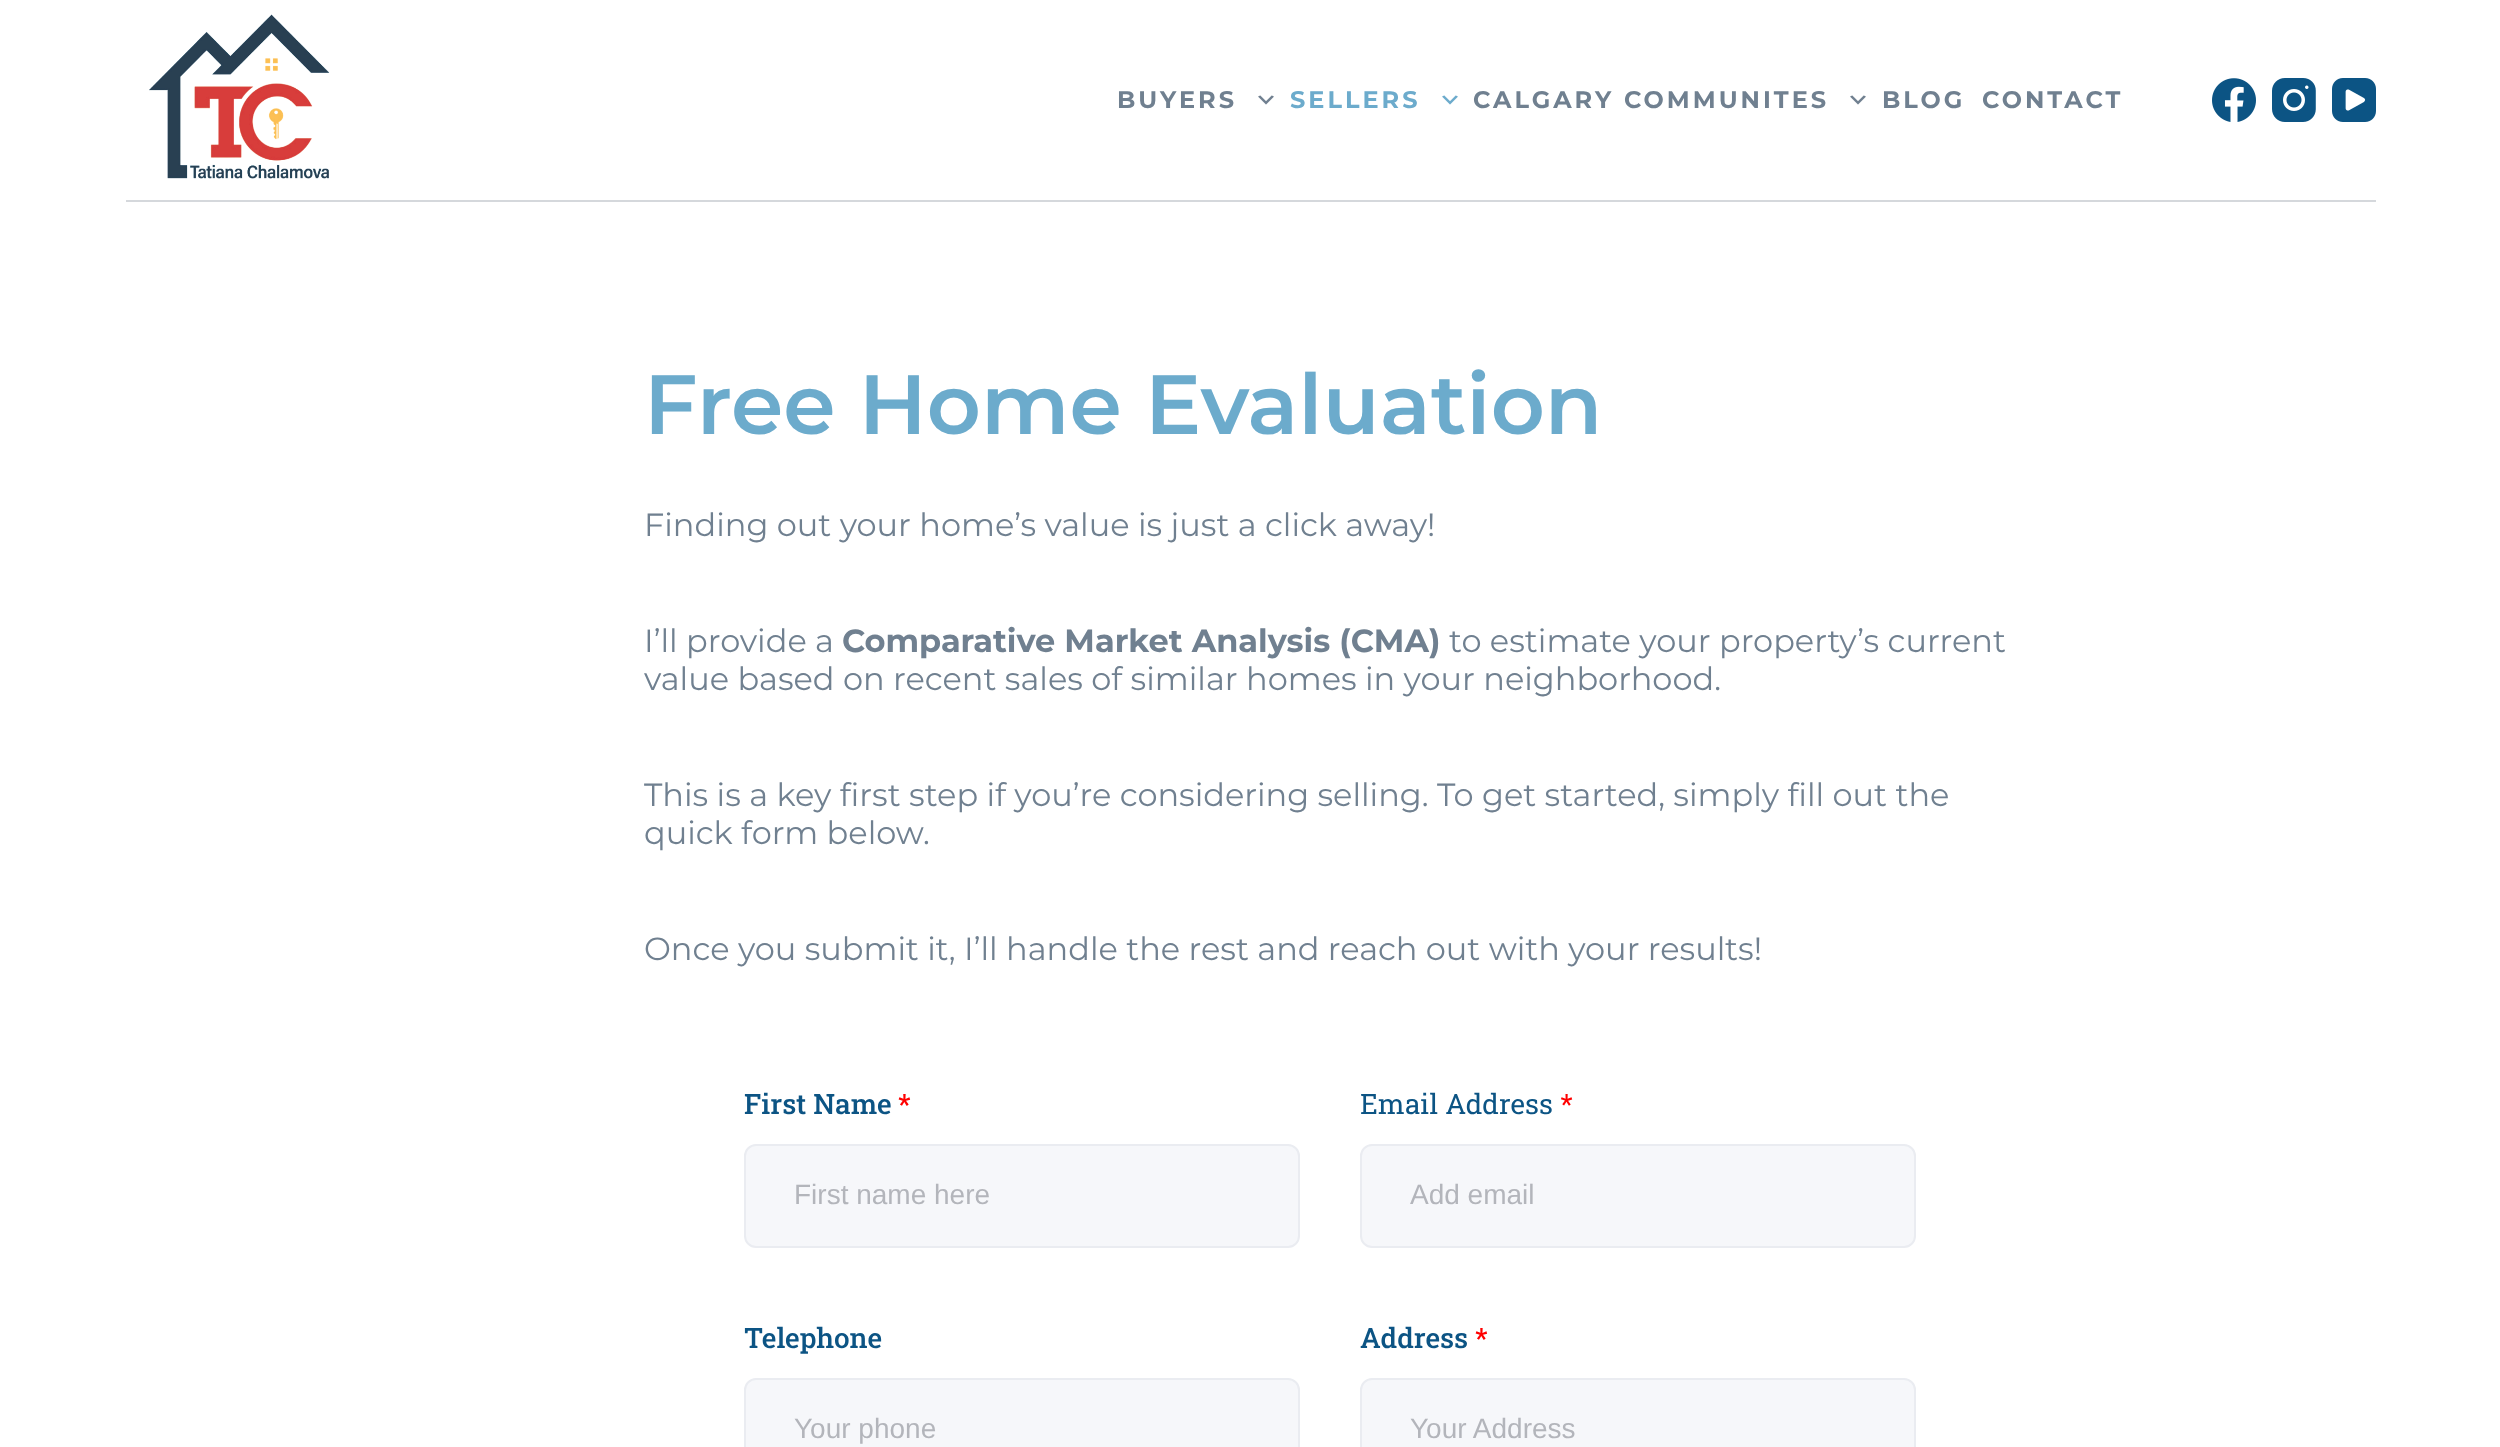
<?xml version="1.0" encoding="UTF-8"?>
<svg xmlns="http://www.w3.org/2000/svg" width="2500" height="1447">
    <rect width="100%" height="100%" fill="#FFFFFF"/>
    <rect x="126" y="200" width="2250" height="2" fill="#D5D8DC"/>
    <image x="149" y="14" width="181" height="165" href="img_01.png"/>
    <text x="1117" y="108" font-family="Montserrat" font-size="24" font-weight="700" letter-spacing="3" fill="#708090">BUYERS</text>
    <image x="1258" y="95" width="16" height="10" href="img_02.png"/>
    <text x="1290" y="108" font-family="Montserrat" font-size="24" font-weight="700" letter-spacing="3" fill="#6CABCC">SELLERS</text>
    <image x="1442" y="95" width="16" height="10" href="img_03.png"/>
    <text x="1473" y="108" font-family="Montserrat" font-size="24" font-weight="700" letter-spacing="3" fill="#708090">CALGARY COMMUNITES</text>
    <image x="1850" y="95" width="16" height="10" href="img_02.png"/>
    <text x="1882" y="108" font-family="Montserrat" font-size="24" font-weight="700" letter-spacing="3" fill="#708090">BLOG</text>
    <text x="1982" y="108" font-family="Montserrat" font-size="24" font-weight="700" letter-spacing="3" fill="#708090">CONTACT</text>
    <image x="2212" y="78" width="44" height="44" href="img_04.png"/>
    <image x="2272" y="78" width="44" height="44" href="img_05.png"/>
    <image x="2332" y="78" width="44" height="44" href="img_06.png"/>
    <text x="644" y="434" font-family="Montserrat" font-size="84" font-weight="600" fill="#6CABCC">Free Home Evaluation</text>
    <text x="644" y="536" font-family="Montserrat" font-size="32" fill="#708090">Finding out your home’s value is just a click away!</text>
    <text x="644" y="652" font-family="Montserrat" font-size="32" fill="#708090">I’ll provide a</text>
    <text x="842" y="652" font-family="Montserrat" font-size="32" font-weight="700" fill="#708090">Comparative Market Analysis (CMA)</text>
    <text x="1449" y="652" font-family="Montserrat" font-size="32" fill="#708090">to estimate your property’s current</text>
    <text x="644" y="690" font-family="Montserrat" font-size="32" fill="#708090">value based on recent sales of similar homes in your neighborhood.</text>
    <text font-family="Montserrat" font-size="32" fill="#708090">
        <tspan x="644" y="806">This is a key first step if you’re considering selling. To get started, simply fill out the</tspan>
        <tspan x="644" y="844">quick form below.</tspan>
    </text>
    <text x="644" y="960" font-family="Montserrat" font-size="32" fill="#708090">Once you submit it, I’ll handle the rest and reach out with your results!</text>
    <text x="744" y="1114" font-family="Roboto Slab" font-size="28" font-weight="500" fill="#0C5484">First Name</text>
    <text x="898" y="1114" font-family="Roboto Slab" font-size="28" font-weight="500" fill="#FF0000">*</text>
    <rect x="745" y="1145" width="554" height="102" rx="11" fill="#F6F7FA" stroke="#EAECF1" stroke-width="2"/>
    <text x="794" y="1204" font-family="Liberation Sans" font-size="28" fill="#B3B5BB">First name here</text>
    <text x="1360" y="1114" font-family="Roboto Slab" font-size="28" fill="#0C5484">Email Address</text>
    <text x="1560" y="1114" font-family="Roboto Slab" font-size="28" fill="#FF0000">*</text>
    <rect x="1361" y="1145" width="554" height="102" rx="11" fill="#F6F7FA" stroke="#EAECF1" stroke-width="2"/>
    <text x="1410" y="1204" font-family="Liberation Sans" font-size="28" fill="#B3B5BB">Add email</text>
    <text x="744" y="1348" font-family="Roboto Slab" font-size="28" font-weight="500" fill="#0C5484">Telephone</text>
    <rect x="745" y="1379" width="554" height="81" rx="11" fill="#F6F7FA" stroke="#EAECF1" stroke-width="2"/>
    <text x="794" y="1438" font-family="Liberation Sans" font-size="28" fill="#B3B5BB">Your phone</text>
    <text x="1360" y="1348" font-family="Roboto Slab" font-size="28" font-weight="500" fill="#0C5484">Address</text>
    <text x="1475" y="1348" font-family="Roboto Slab" font-size="28" font-weight="500" fill="#FF0000">*</text>
    <rect x="1361" y="1379" width="554" height="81" rx="11" fill="#F6F7FA" stroke="#EAECF1" stroke-width="2"/>
    <text x="1410" y="1438" font-family="Liberation Sans" font-size="28" fill="#B3B5BB">Your Address</text>
</svg>
